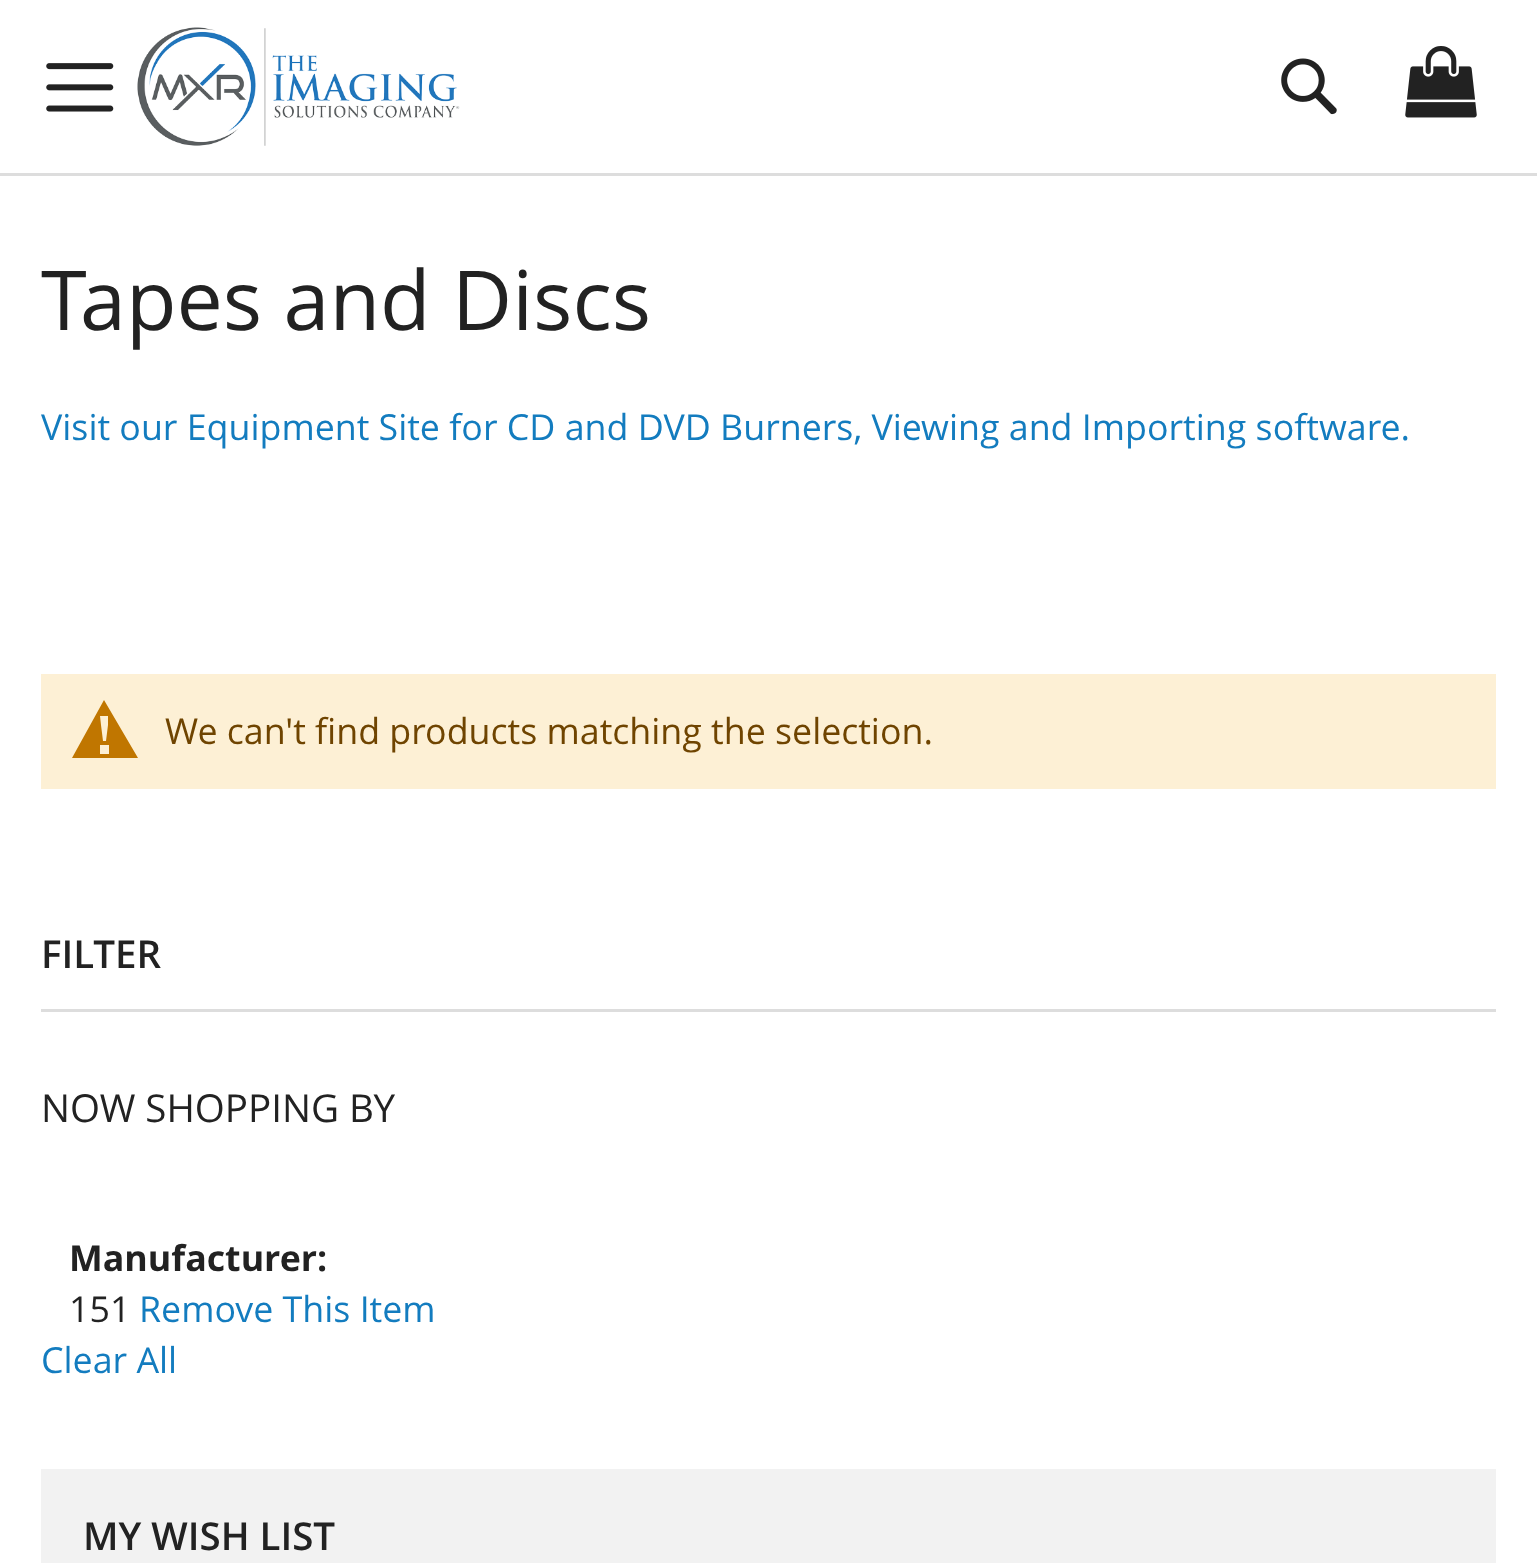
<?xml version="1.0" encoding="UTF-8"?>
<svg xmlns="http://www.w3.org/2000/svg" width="1537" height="1563">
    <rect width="100%" height="100%" fill="#FFFFFF"/>
    <image x="137" y="27" width="323" height="119" href="img_01.png"/>
    <image x="1405" y="46" width="72" height="72" href="img_02.png"/>
    <image x="1281" y="58" width="56" height="57" href="img_03.png"/>
    <rect x="0" y="173" width="1537" height="3" fill="#DDDDDD"/>
    <image x="46" y="63" width="68" height="49" href="img_04.png"/>
    <text x="41" y="330" font-family="Open Sans" font-size="82.5" fill="#222222">Tapes and Discs</text>
    <text x="41" y="440" font-family="Open Sans" font-size="35.75" fill="#137CBF">Visit our Equipment Site for CD and DVD Burners, Viewing and Importing software.</text>
    <rect x="41" y="674" width="1455" height="115" fill="#FDF0D5"/>
    <path d="M 104 700 L 72 758 H 138 Z M 108 716 V 725 L 106 741 H 103 L 101 725 L 100 716 Z M 100 754 V 745 H 109 V 754 Z" fill="#C07600"/>
    <text x="165" y="744" font-family="Open Sans" font-size="35.75" fill="#6F4400">We can't find products matching the selection.</text>
    <rect x="41" y="1009" width="1455" height="3" fill="#DDDDDD"/>
    <text x="41" y="968" font-family="Open Sans" font-size="38.5" font-weight="600" fill="#222222">FILTER</text>
    <text x="41" y="1122" font-family="Open Sans" font-size="38.5" fill="#222222">NOW SHOPPING BY</text>
    <text x="69" y="1271" font-family="Open Sans" font-size="35.75" font-weight="700" fill="#222222">Manufacturer:</text>
    <text x="69" y="1322" font-family="Open Sans" font-size="35.75" fill="#222222">151</text>
    <text x="139" y="1322" font-family="Open Sans" font-size="35.75" fill="#137CBF">Remove This Item</text>
    <text x="41" y="1373" font-family="Open Sans" font-size="35.75" fill="#137CBF">Clear All</text>
    <rect x="41" y="1469" width="1455" height="94" fill="#F2F2F2"/>
    <text x="83" y="1550" font-family="Open Sans" font-size="38.5" font-weight="600" fill="#222222">MY WISH LIST</text>
</svg>
